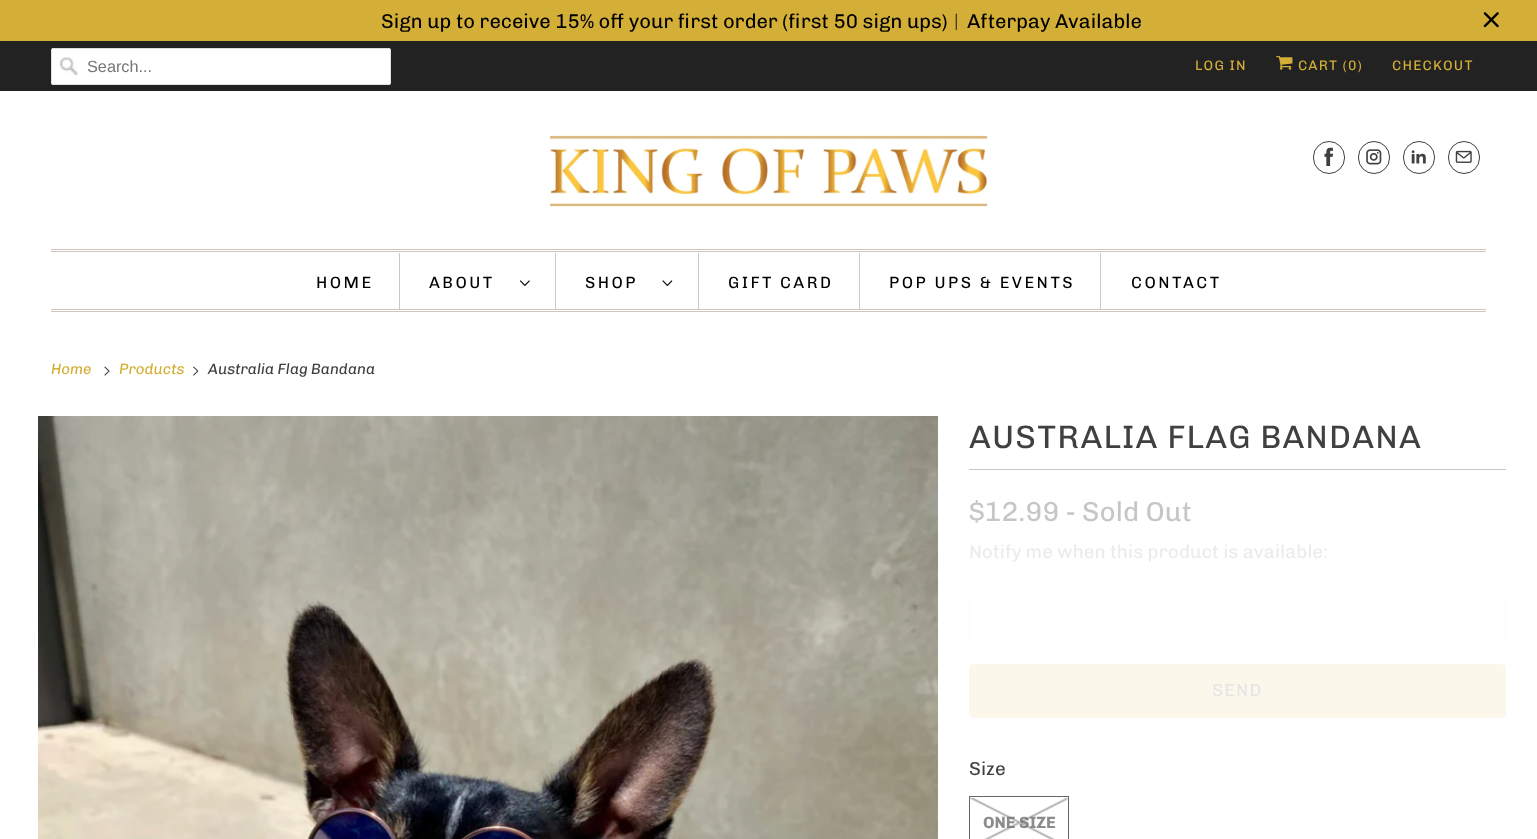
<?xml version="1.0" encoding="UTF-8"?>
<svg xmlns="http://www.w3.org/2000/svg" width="1537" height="839">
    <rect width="100%" height="100%" fill="#FFFFFF"/>
    <rect x="0" y="0" width="1537" height="41" fill="#D4AF37"/>
    <text x="381" y="28" font-family="Chivo" font-size="20" fill="#000000">Sign up to receive 15% off your first order (first 50 sign ups)</text>
    <text x="947" y="28" font-family="WenQuanYi Zen Hei" font-size="20" font-weight="500" fill="#000000">︱</text>
    <text x="967" y="28" font-family="Chivo" font-size="20" fill="#000000">Afterpay Available</text>
    <image x="1483" y="12" width="16" height="16" href="img_01.png"/>
    <rect x="0" y="41" width="1537" height="50" fill="#222222"/>
    <rect x="51" y="48" width="340" height="37" rx="2.5" fill="#FFFFFF"/>
    <image x="60" y="57" width="18" height="18" href="img_02.png"/>
    <rect x="51.5" y="48.5" width="339" height="36" rx="2" fill="none" stroke="#DFDFDF"/>
    <text x="87" y="72" font-family="Liberation Sans" font-size="16.25" fill="#757575">Search...</text>
    <text x="1195" y="70" font-family="Chivo" font-size="13.75" letter-spacing="1.25" fill="#D4AF37">LOG IN</text>
    <image x="1276" y="56" width="17" height="14" href="img_03.png"/>
    <text x="1298" y="70" font-family="Chivo" font-size="13.75" letter-spacing="1.25" fill="#D4AF37">CART (0)</text>
    <text x="1392" y="70" font-family="Chivo" font-size="13.75" letter-spacing="1.25" fill="#D4AF37">CHECKOUT</text>
    <image x="550" y="135" width="438" height="72" href="img_04.png"/>
    <rect x="1313.5" y="141.5" width="31" height="32" rx="15.5" fill="none" stroke="#404040"/>
    <image x="1324" y="147" width="9" height="19" href="img_05.png"/>
    <rect x="1358.5" y="141.5" width="31" height="32" rx="15.5" fill="none" stroke="#404040"/>
    <image x="1366" y="149" width="16" height="16" href="img_06.png"/>
    <rect x="1403.5" y="141.5" width="31" height="32" rx="15.5" fill="none" stroke="#404040"/>
    <image x="1411" y="150" width="15" height="14" href="img_07.png"/>
    <rect x="1448.5" y="141.5" width="31" height="32" rx="15.5" fill="none" stroke="#404040"/>
    <image x="1455" y="150" width="17" height="13" href="img_08.png"/>
    <rect x="51" y="249" width="1435" height="1" fill="#CEC6BF"/>
    <rect x="51" y="251" width="1435" height="1" fill="#CEC6BF"/>
    <rect x="51" y="309" width="1435" height="1" fill="#CEC6BF"/>
    <rect x="51" y="311" width="1435" height="1" fill="#CEC6BF"/>
    <rect x="399" y="253" width="1" height="56" fill="#CEC6BF"/>
    <text x="316" y="288" font-family="Chivo" font-size="16.25" letter-spacing="2.5" fill="#000000">HOME</text>
    <rect x="555" y="253" width="1" height="56" fill="#CEC6BF"/>
    <text x="429" y="288" font-family="Chivo" font-size="16.25" letter-spacing="2.5" fill="#000000">ABOUT</text>
    <image x="520" y="280" width="10" height="6" href="img_09.png"/>
    <rect x="698" y="253" width="1" height="56" fill="#CEC6BF"/>
    <text x="585" y="288" font-family="Chivo" font-size="16.25" letter-spacing="2.5" fill="#000000">SHOP</text>
    <image x="662" y="280" width="11" height="6" href="img_10.png"/>
    <rect x="859" y="253" width="1" height="56" fill="#CEC6BF"/>
    <text x="728" y="288" font-family="Chivo" font-size="16.25" letter-spacing="2.5" fill="#000000">GIFT CARD</text>
    <rect x="1100" y="253" width="1" height="56" fill="#CEC6BF"/>
    <text x="889" y="288" font-family="Chivo" font-size="16.25" letter-spacing="2.5" fill="#000000">POP UPS &amp; EVENTS</text>
    <text x="1131" y="288" font-family="Chivo" font-size="16.25" letter-spacing="2.5" fill="#000000">CONTACT</text>
    <text x="51" y="374" font-family="Chivo" font-size="15" font-style="italic" fill="#D4AF37">Home</text>
    <image x="104" y="366" width="6" height="10" href="img_11.png"/>
    <text x="119" y="374" font-family="Chivo" font-size="15" font-style="italic" fill="#D4AF37">Products</text>
    <image x="193" y="366" width="6" height="10" href="img_12.png"/>
    <text x="208" y="374" font-family="Chivo" font-size="15" font-style="italic" fill="#404040">Australia Flag Bandana</text>
    <image x="38" y="416" width="900" height="423" href="img_13.png"/>
    <rect x="969" y="469" width="537" height="1" fill="#CEC6BF"/>
    <text x="969" y="448" font-family="Chivo" font-size="32.5" letter-spacing="1.25" fill="#404040">AUSTRALIA FLAG BANDANA</text>
    <text x="969" y="521" font-family="Chivo" font-size="27.5" fill="#C6C6C6">$12.99 - Sold Out</text>
    <text x="969" y="558" font-family="Chivo" font-size="18.75" fill="#EBEBEB">Notify me when this product is available:</text>
    <rect x="969.5" y="594.5" width="536" height="50" rx="2" fill="none" stroke="#FCFCFC"/>
    <rect x="969.5" y="664.5" width="536" height="53" rx="3.5" fill="#FBF7EA" stroke="#FBF7EA"/>
    <text x="1212" y="696" font-family="Chivo" font-size="17.5" letter-spacing="1.25" fill="#E5E5E5">SEND</text>
    <text x="969" y="775" font-family="Chivo" font-size="18.75" fill="#404040">Size</text>
    <rect x="969.5" y="796.5" width="99" height="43" fill="none" stroke="#666666"/>
    <text x="983" y="828" font-family="Chivo" font-size="16.25" font-weight="700" fill="#8C8C8C">ONE SIZE</text>
    <image x="970" y="798" width="98" height="41" href="img_14.png"/>
</svg>
